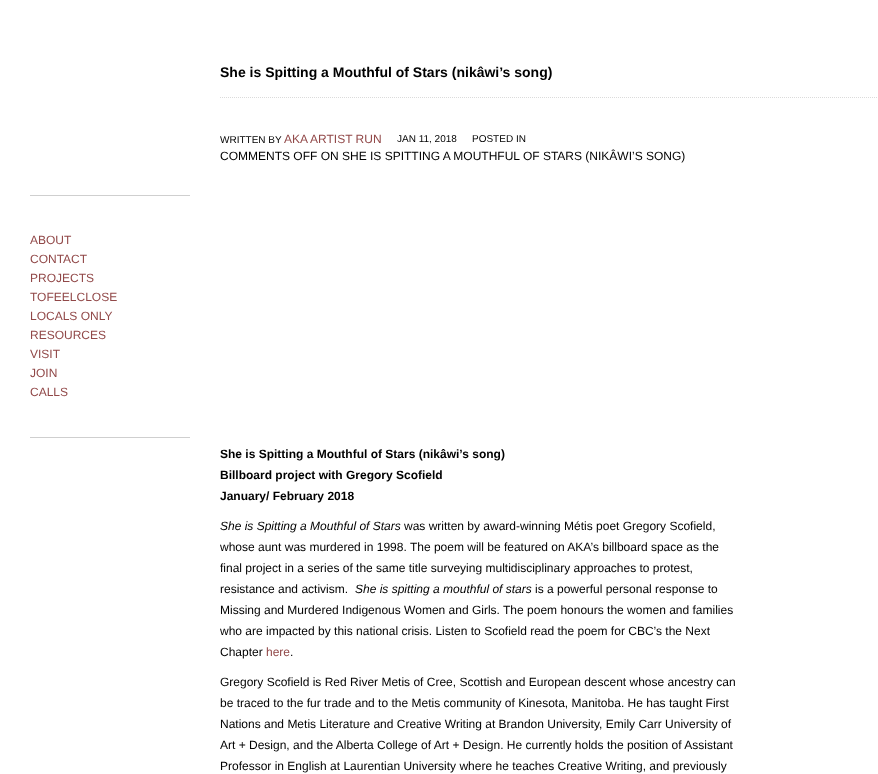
<?xml version="1.0" encoding="UTF-8"?>
<svg xmlns="http://www.w3.org/2000/svg" width="878" height="774">
    <rect width="100%" height="100%" fill="#FFFFFF"/>
    <rect x="30" y="195" width="160" height="1" fill="#CFCFCF"/>
    <rect x="30" y="437" width="160" height="1" fill="#CFCFCF"/>
    <text font-family="Liberation Sans" font-size="12" fill="#914848">
        <tspan x="30" y="244">ABOUT</tspan>
        <tspan x="30" y="263">CONTACT</tspan>
        <tspan x="30" y="282">PROJECTS</tspan>
        <tspan x="30" y="301">TOFEELCLOSE</tspan>
        <tspan x="30" y="320">LOCALS ONLY</tspan>
        <tspan x="30" y="339">RESOURCES</tspan>
        <tspan x="30" y="358">VISIT</tspan>
        <tspan x="30" y="377">JOIN</tspan>
        <tspan x="30" y="396">CALLS</tspan>
    </text>
    <path d="M 220 97.5 H 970" fill="none" stroke="#DBDBDB" stroke-dasharray="1 1"/>
    <text x="220" y="77" font-family="Liberation Sans" font-size="14" font-weight="700" fill="#000000">She is Spitting a Mouthful of Stars (nikâwi’s song)</text>
    <text x="220" y="143" font-family="Liberation Sans" font-size="10" fill="#000000">WRITTEN BY</text>
    <text x="284" y="143" font-family="Liberation Sans" font-size="12" fill="#914848">AKA ARTIST RUN</text>
    <text x="397" y="142" font-family="Liberation Sans" font-size="10" fill="#000000">JAN 11, 2018</text>
    <text x="472" y="142" font-family="Liberation Sans" font-size="10" fill="#000000">POSTED IN</text>
    <text x="220" y="160" font-family="Liberation Sans" font-size="12" fill="#000000">COMMENTS OFF ON SHE IS SPITTING A MOUTHFUL OF STARS (NIKÂWI’S SONG)</text>
    <text font-family="Liberation Sans" font-size="12" font-weight="700" fill="#000000">
        <tspan x="220" y="458">She is Spitting a Mouthful of Stars (nikâwi’s song)</tspan>
        <tspan x="220" y="479">Billboard project with Gregory Scofield</tspan>
        <tspan x="220" y="500">January/ February 2018</tspan>
    </text>
    <text x="220" y="530" font-family="Liberation Sans" font-size="12" font-style="italic" fill="#000000">She is Spitting a Mouthful of Stars</text>
    <text x="404" y="530" font-family="Liberation Sans" font-size="12" fill="#000000">was written by award-winning Métis poet Gregory Scofield,</text>
    <text font-family="Liberation Sans" font-size="12" fill="#000000">
        <tspan x="220" y="551">whose aunt was murdered in 1998. The poem will be featured on AKA’s billboard space as the</tspan>
        <tspan x="220" y="572">final project in a series of the same title surveying multidisciplinary approaches to protest,</tspan>
        <tspan x="220" y="593">resistance and activism.</tspan>
    </text>
    <text x="355" y="593" font-family="Liberation Sans" font-size="12" font-style="italic" fill="#000000">She is spitting a mouthful of stars</text>
    <text x="535" y="593" font-family="Liberation Sans" font-size="12" fill="#000000">is a powerful personal response to</text>
    <text font-family="Liberation Sans" font-size="12" fill="#000000">
        <tspan x="220" y="614">Missing and Murdered Indigenous Women and Girls. The poem honours the women and families</tspan>
        <tspan x="220" y="635">who are impacted by this national crisis. Listen to Scofield read the poem for CBC’s the Next</tspan>
        <tspan x="220" y="656">Chapter</tspan>
    </text>
    <text x="266" y="656" font-family="Liberation Sans" font-size="12" fill="#914848">here</text>
    <text x="290" y="656" font-family="Liberation Sans" font-size="12" fill="#000000">.</text>
    <text font-family="Liberation Sans" font-size="12" fill="#000000">
        <tspan x="220" y="686">Gregory Scofield is Red River Metis of Cree, Scottish and European descent whose ancestry can</tspan>
        <tspan x="220" y="707">be traced to the fur trade and to the Metis community of Kinesota, Manitoba. He has taught First</tspan>
        <tspan x="220" y="728">Nations and Metis Literature and Creative Writing at Brandon University, Emily Carr University of</tspan>
        <tspan x="220" y="749">Art + Design, and the Alberta College of Art + Design. He currently holds the position of Assistant</tspan>
        <tspan x="220" y="770">Professor in English at Laurentian University where he teaches Creative Writing, and previously</tspan>
    </text>
</svg>
